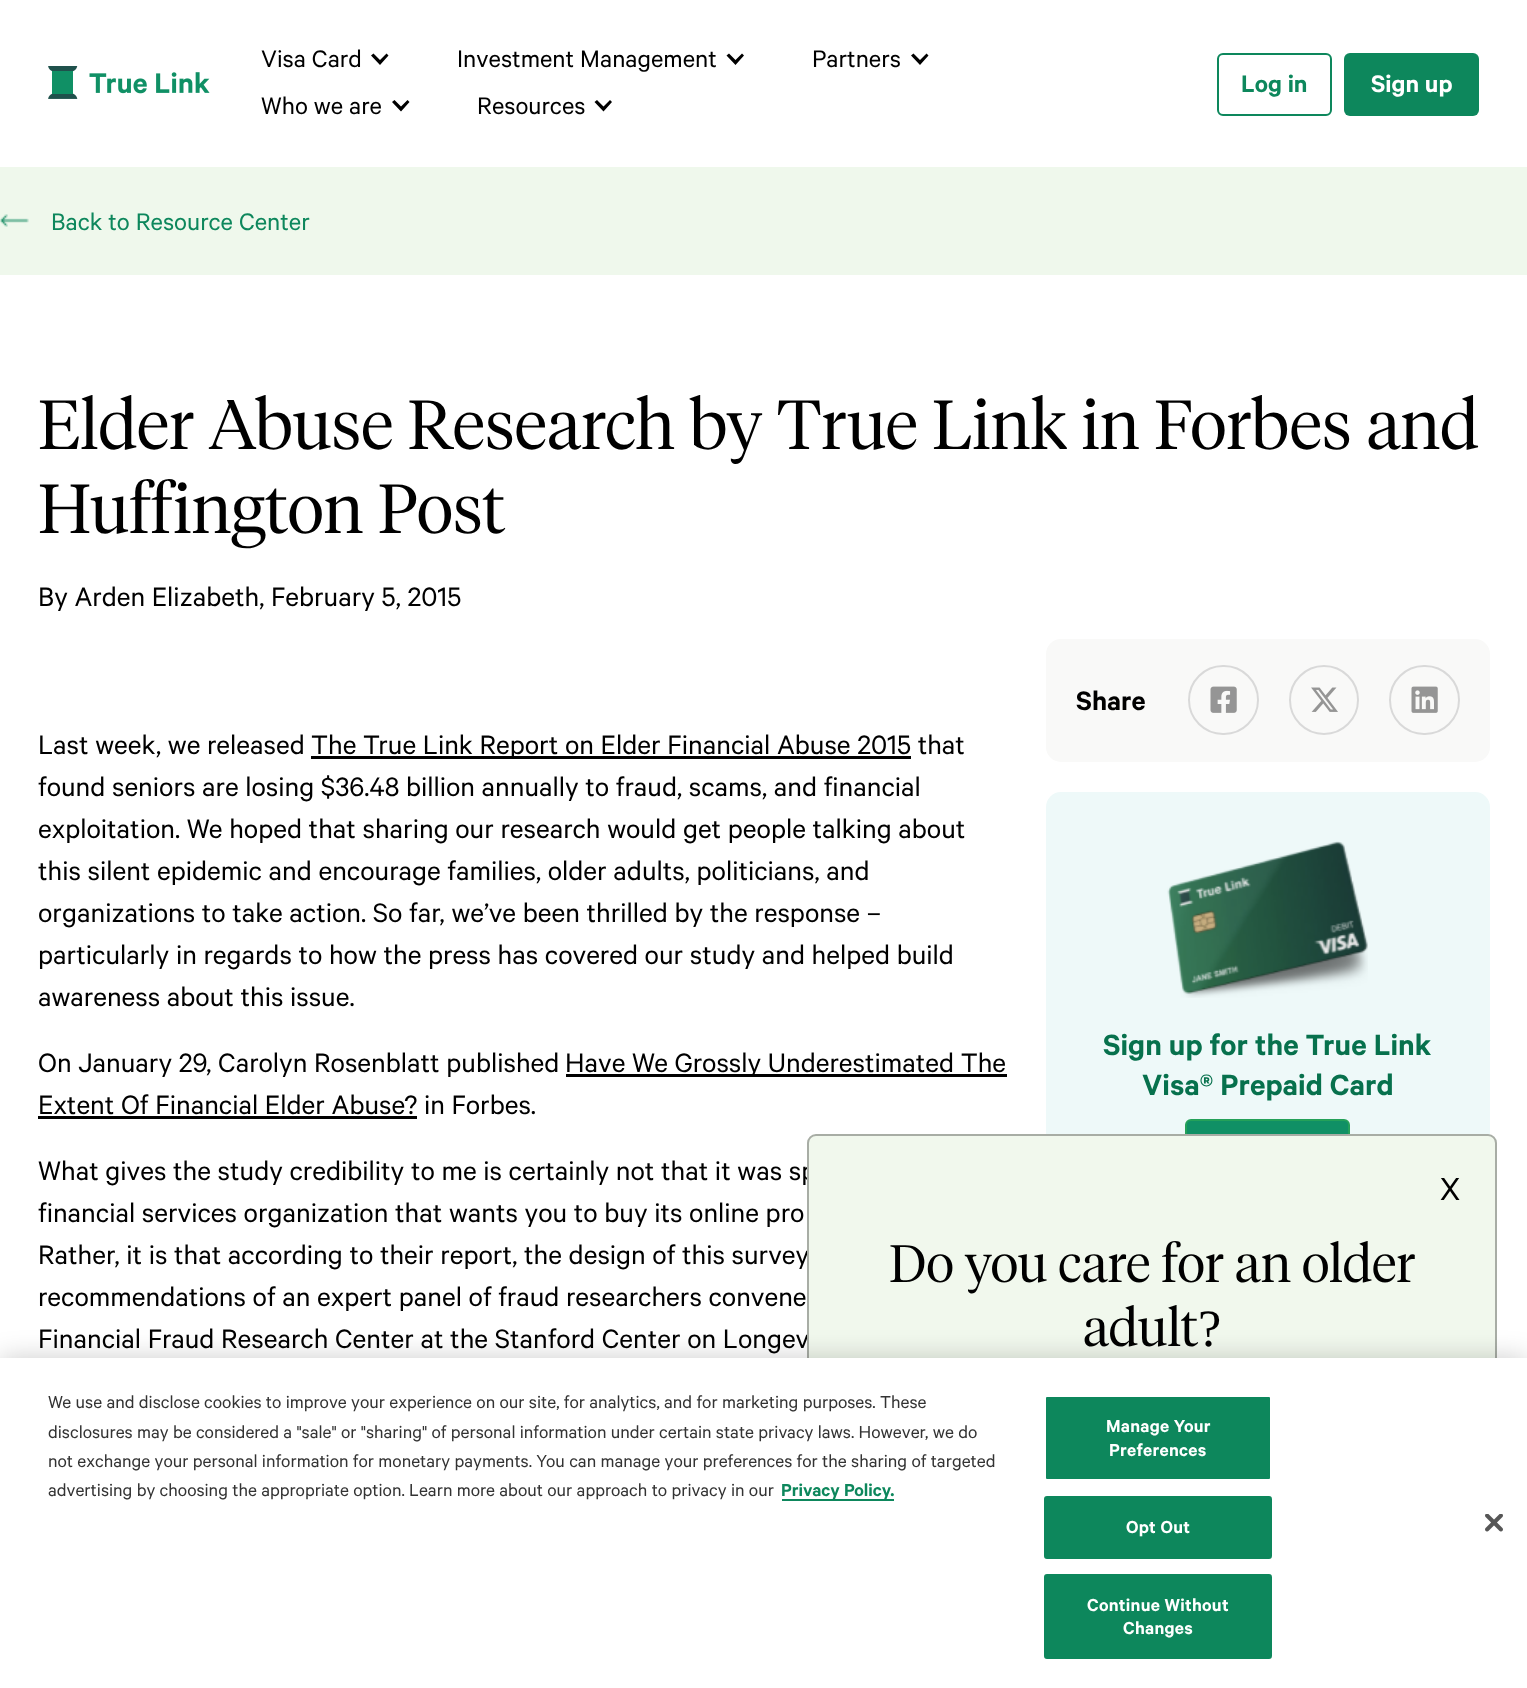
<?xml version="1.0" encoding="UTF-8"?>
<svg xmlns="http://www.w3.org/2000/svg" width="1527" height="1688">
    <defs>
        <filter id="blur1" x="-50%" y="-200%" width="200%" height="500%"><feGaussianBlur stdDeviation="13.5"/></filter>
    </defs>
    <rect width="100%" height="100%" fill="#FFFFFF"/>
    <image x="48" y="66" width="162" height="33" href="img_01.png"/>
    <text x="261" y="67" font-family="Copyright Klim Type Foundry" font-size="27" fill="#000000">Visa Card</text>
    <path d="M 386.5 53.5 L 380 60 L 373.5 53.5 L 371 55.5 L 380 65 L 388.5 55.5 Z" fill="#000000"/>
    <text x="457" y="67" font-family="Copyright Klim Type Foundry" font-size="27" fill="#000000">Investment Management</text>
    <path d="M 742 53.5 L 735.5 60 L 729 53.5 L 726.5 55.5 L 735.5 65 L 744 55.5 Z" fill="#000000"/>
    <text x="812" y="67" font-family="Copyright Klim Type Foundry" font-size="27" fill="#000000">Partners</text>
    <path d="M 926.5 53.5 L 920 60 L 913.5 53.5 L 911 55.5 L 920 65 L 928.5 55.5 Z" fill="#000000"/>
    <text x="261" y="114" font-family="Copyright Klim Type Foundry" font-size="27" fill="#000000">Who we are</text>
    <path d="M 407.5 100 L 401 106.5 L 394.5 100 L 392 102 L 401 111.5 L 409.5 102 Z" fill="#000000"/>
    <text x="477" y="114" font-family="Copyright Klim Type Foundry" font-size="27" fill="#000000">Resources</text>
    <path d="M 610 100 L 603.5 106.5 L 597 100 L 594.5 102 L 603.5 111.5 L 612 102 Z" fill="#000000"/>
    <rect x="1218" y="54" width="113" height="61" rx="5" fill="none" stroke="#0D875C" stroke-width="2"/>
    <text x="1241" y="92" font-family="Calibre" font-size="27" font-weight="600" fill="#0D875C">Log in</text>
    <rect x="1344" y="53" width="135" height="63" rx="6" fill="#0D875C"/>
    <text x="1371" y="92" font-family="Calibre" font-size="27" font-weight="600" fill="#FFFFFF">Sign up</text>
    <rect x="0" y="167" width="1527" height="108" fill="#EFF8EC"/>
    <image x="0" y="214" width="29" height="13" href="img_02.png"/>
    <text x="51" y="230" font-family="Copyright Klim Type Foundry" font-size="27" fill="#0D875C">Back to Resource Center</text>
    <text font-family="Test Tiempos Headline" font-size="69" font-weight="300" fill="#000000">
        <tspan x="38" y="449">Elder Abuse Research by True Link in Forbes and</tspan>
        <tspan x="38" y="533">Huffington Post</tspan>
    </text>
    <text x="38" y="606" font-family="Copyright Klim Type Foundry" font-size="30" fill="#000000">By Arden Elizabeth, February 5, 2015</text>
    <text x="38" y="754" font-family="Copyright Klim Type Foundry" font-size="30" fill="#000000">Last week, we released</text>
    <rect x="311" y="756" width="600" height="3" fill="#000000"/>
    <text x="311" y="754" font-family="Copyright Klim Type Foundry" font-size="30" fill="#000000">The True Link Report on Elder Financial Abuse 2015 that</text>
    <text font-family="Copyright Klim Type Foundry" font-size="30" fill="#000000">
        <tspan x="38" y="796">found seniors are losing $36.48 billion annually to fraud, scams, and financial</tspan>
        <tspan x="38" y="838">exploitation. We hoped that sharing our research would get people talking about</tspan>
        <tspan x="38" y="880">this silent epidemic and encourage families, older adults, politicians, and</tspan>
        <tspan x="38" y="922">organizations to take action. So far, we’ve been thrilled by the response –</tspan>
        <tspan x="38" y="964">particularly in regards to how the press has covered our study and helped build</tspan>
        <tspan x="38" y="1006">awareness about this issue.</tspan>
    </text>
    <text x="38" y="1072" font-family="Copyright Klim Type Foundry" font-size="30" fill="#000000">On January 29, Carolyn Rosenblatt published</text>
    <rect x="566" y="1074" width="441" height="3" fill="#000000"/>
    <text x="565" y="1072" font-family="Copyright Klim Type Foundry" font-size="30" fill="#000000">Have We Grossly Underestimated The</text>
    <text x="38" y="1114" font-family="Copyright Klim Type Foundry" font-size="30" fill="#000000">Extent Of Financial Elder Abuse? in Forbes.</text>
    <rect x="38" y="1116" width="379" height="3" fill="#000000"/>
    <text font-family="Copyright Klim Type Foundry" font-size="30" fill="#000000">
        <tspan x="38" y="1180">What gives the study credibility to me is certainly not that it was sp</tspan>
        <tspan x="38" y="1222">financial services organization that wants you to buy its online pro</tspan>
        <tspan x="38" y="1264">Rather, it is that according to their report, the design of this survey</tspan>
        <tspan x="38" y="1306">recommendations of an expert panel of fraud researchers convene</tspan>
        <tspan x="38" y="1348">Financial Fraud Research Center at the Stanford Center on Longev</tspan>
    </text>
    <rect x="1046" y="639" width="444" height="123" rx="15" fill="#F9F9F8"/>
    <text x="1076" y="710" font-family="Calibre" font-size="30" font-weight="600" fill="#000000">Share</text>
    <rect x="1189" y="666" width="69" height="68" rx="34" fill="none" stroke="#D9D9D9" stroke-width="2"/>
    <image x="1210" y="686" width="27" height="27" href="img_03.png"/>
    <circle cx="1324" cy="700" r="34" fill="none" stroke="#D9D9D9" stroke-width="2"/>
    <image x="1311" y="687" width="27" height="25" href="img_04.png"/>
    <rect x="1390" y="666" width="69" height="68" rx="34" fill="none" stroke="#D9D9D9" stroke-width="2"/>
    <image x="1411" y="686" width="27" height="27" href="img_05.png"/>
    <rect x="1046" y="792" width="444" height="441" rx="15" fill="#EEF9F9"/>
    <image x="1167" y="841" width="201" height="157" href="img_06.png"/>
    <text x="1103" y="1055" font-family="Calibre" font-size="33" font-weight="600" fill="#07714D">Sign up for the True Link</text>
    <text x="1142" y="1095" font-family="Calibre" font-size="33" font-weight="600" fill="#07714D">Visa® Prepaid Card</text>
    <rect x="1186" y="1120" width="163" height="70" rx="5" fill="#109065" stroke="#24A159" stroke-width="2"/>
    <rect x="807" y="1134" width="690" height="525" rx="9" fill="#F1F8ED"/>
    <rect x="808" y="1135" width="688" height="523" rx="8" fill="none" stroke="#000000" stroke-opacity="0.3" stroke-width="2"/>
    <text x="1440" y="1200" font-family="Copyright Klim Type Foundry" font-size="36" fill="#000000">X</text>
    <text x="889" y="1282" font-family="Test Tiempos Headline" font-size="52.5" font-weight="300" fill="#000000">Do you care for an older</text>
    <text x="1083" y="1346" font-family="Test Tiempos Headline" font-size="52.5" font-weight="300" fill="#000000">adult</text>
    <text x="1198" y="1346" font-family="Liberation Serif" font-size="52.5" fill="#000000">?</text>
    <rect x="0" y="1358" width="1527" height="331" fill="#000000" fill-opacity="0.2" filter="url(#blur1)"/>
    <rect x="0" y="1358" width="1527" height="330" fill="#FFFFFF"/>
    <text font-family="Copyright Klim Type Foundry" font-size="19.5" fill="#333333">
        <tspan x="48" y="1408">We use and disclose cookies to improve your experience on our site, for analytics, and for marketing purposes. These</tspan>
        <tspan x="48" y="1438">disclosures may be considered a "sale" or "sharing" of personal information under certain state privacy laws. However, we do</tspan>
        <tspan x="48" y="1467">not exchange your personal information for monetary payments. You can manage your preferences for the sharing of targeted</tspan>
        <tspan x="48" y="1496">advertising by choosing the appropriate option. Learn more about our approach to privacy in our</tspan>
    </text>
    <rect x="782" y="1499" width="112" height="2" fill="#0D875C"/>
    <text x="781" y="1496" font-family="Calibre" font-size="19.5" font-weight="600" fill="#0D875C">Privacy Policy.</text>
    <rect x="1045" y="1396" width="226" height="84" rx="2" fill="#0D875C" stroke="#FFFFFF" stroke-width="2"/>
    <text x="1106" y="1432" font-family="Calibre" font-size="19.5" font-weight="600" letter-spacing="0.25" fill="#FFFFFF">Manage Your</text>
    <text x="1109" y="1456" font-family="Calibre" font-size="19.5" font-weight="600" letter-spacing="0.25" fill="#FFFFFF">Preferences</text>
    <rect x="1045" y="1497" width="226" height="61" rx="2" fill="#0D875C" stroke="#0D875C" stroke-width="2"/>
    <text x="1126" y="1533" font-family="Calibre" font-size="19.5" font-weight="600" letter-spacing="0.25" fill="#FFFFFF">Opt Out</text>
    <rect x="1045" y="1575" width="226" height="83" rx="2" fill="#0D875C" stroke="#0D875C" stroke-width="2"/>
    <text x="1087" y="1611" font-family="Calibre" font-size="19.5" font-weight="600" letter-spacing="0.25" fill="#FFFFFF">Continue Without</text>
    <text x="1123" y="1634" font-family="Calibre" font-size="19.5" font-weight="600" letter-spacing="0.25" fill="#FFFFFF">Changes</text>
    <image x="1485" y="1514" width="18" height="18" href="img_07.png"/>
</svg>
